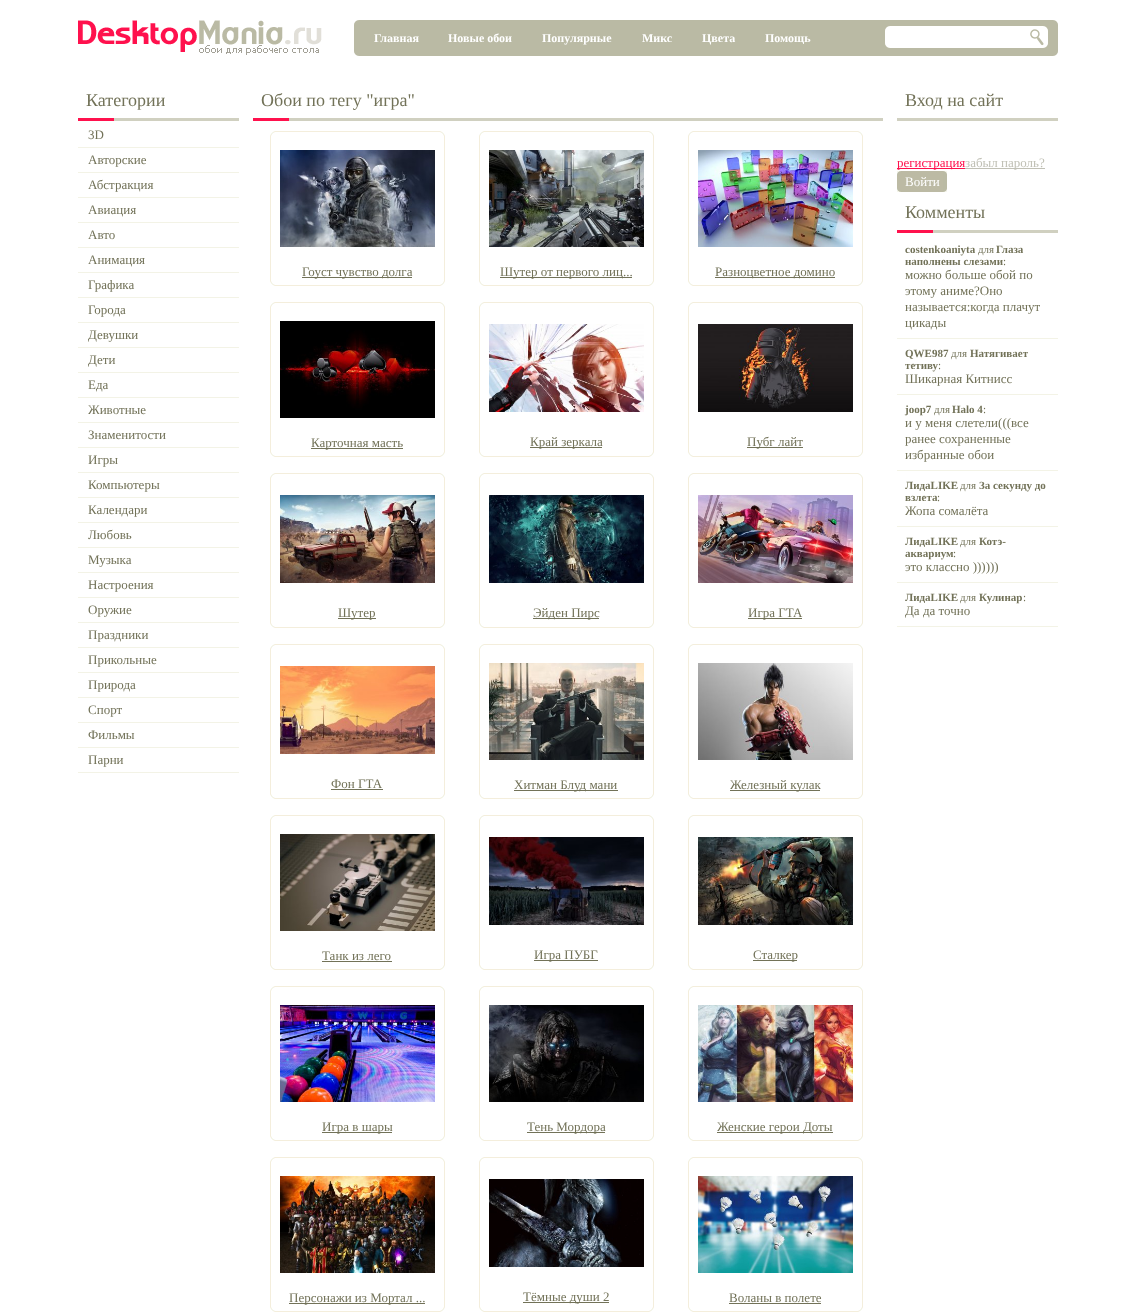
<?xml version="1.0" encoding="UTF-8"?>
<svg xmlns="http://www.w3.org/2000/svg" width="1135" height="1316">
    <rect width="100%" height="100%" fill="#FFFFFF"/>
    <image x="78" y="20" width="244" height="35" href="img_01.png"/>
    <rect x="354" y="20" width="704" height="36" fill="#BABAA4"/>
    <image x="354" y="20" width="5" height="5" href="img_02.png"/>
    <image x="1053" y="20" width="5" height="5" href="img_03.png"/>
    <text x="374" y="42" font-family="Liberation Serif" font-size="12" font-weight="700" fill="#FFFFFF">Главная</text>
    <text x="448" y="42" font-family="Liberation Serif" font-size="12" font-weight="700" fill="#FFFFFF">Новые обои</text>
    <text x="542" y="42" font-family="Liberation Serif" font-size="12" font-weight="700" fill="#FFFFFF">Популярные</text>
    <text x="642" y="42" font-family="Liberation Serif" font-size="12" font-weight="700" fill="#FFFFFF">Микс</text>
    <text x="702" y="42" font-family="Liberation Serif" font-size="12" font-weight="700" fill="#FFFFFF">Цвета</text>
    <text x="765" y="42" font-family="Liberation Serif" font-size="12" font-weight="700" fill="#FFFFFF">Помощь</text>
    <image x="885" y="26" width="163" height="22" href="img_04.png"/>
    <rect x="893" y="32" width="83" height="10" fill="#FFFFFF"/>
    <image x="354" y="51" width="5" height="5" href="img_05.png"/>
    <image x="1053" y="51" width="5" height="5" href="img_06.png"/>
    <rect x="114" y="118" width="125" height="3" fill="#D0D0C0"/>
    <text x="86" y="106" font-family="Liberation Serif" font-size="18" fill="#727258">Категории</text>
    <rect x="78" y="118" width="36" height="3" fill="#FF114D"/>
    <rect x="78" y="147" width="161" height="1" fill="#F3F3E6"/>
    <text x="88" y="139" font-family="Liberation Serif" font-size="13" fill="#727258">3D</text>
    <rect x="78" y="172" width="161" height="1" fill="#F3F3E6"/>
    <text x="88" y="164" font-family="Liberation Serif" font-size="13" fill="#727258">Авторские</text>
    <rect x="78" y="197" width="161" height="1" fill="#F3F3E6"/>
    <text x="88" y="189" font-family="Liberation Serif" font-size="13" fill="#727258">Абстракция</text>
    <rect x="78" y="222" width="161" height="1" fill="#F3F3E6"/>
    <text x="88" y="214" font-family="Liberation Serif" font-size="13" fill="#727258">Авиация</text>
    <rect x="78" y="247" width="161" height="1" fill="#F3F3E6"/>
    <text x="88" y="239" font-family="Liberation Serif" font-size="13" fill="#727258">Авто</text>
    <rect x="78" y="272" width="161" height="1" fill="#F3F3E6"/>
    <text x="88" y="264" font-family="Liberation Serif" font-size="13" fill="#727258">Анимация</text>
    <rect x="78" y="297" width="161" height="1" fill="#F3F3E6"/>
    <text x="88" y="289" font-family="Liberation Serif" font-size="13" fill="#727258">Графика</text>
    <rect x="78" y="322" width="161" height="1" fill="#F3F3E6"/>
    <text x="88" y="314" font-family="Liberation Serif" font-size="13" fill="#727258">Города</text>
    <rect x="78" y="347" width="161" height="1" fill="#F3F3E6"/>
    <text x="88" y="339" font-family="Liberation Serif" font-size="13" fill="#727258">Девушки</text>
    <rect x="78" y="372" width="161" height="1" fill="#F3F3E6"/>
    <text x="88" y="364" font-family="Liberation Serif" font-size="13" fill="#727258">Дети</text>
    <rect x="78" y="397" width="161" height="1" fill="#F3F3E6"/>
    <text x="88" y="389" font-family="Liberation Serif" font-size="13" fill="#727258">Еда</text>
    <rect x="78" y="422" width="161" height="1" fill="#F3F3E6"/>
    <text x="88" y="414" font-family="Liberation Serif" font-size="13" fill="#727258">Животные</text>
    <rect x="78" y="447" width="161" height="1" fill="#F3F3E6"/>
    <text x="88" y="439" font-family="Liberation Serif" font-size="13" fill="#727258">Знаменитости</text>
    <rect x="78" y="472" width="161" height="1" fill="#F3F3E6"/>
    <text x="88" y="464" font-family="Liberation Serif" font-size="13" fill="#727258">Игры</text>
    <rect x="78" y="497" width="161" height="1" fill="#F3F3E6"/>
    <text x="88" y="489" font-family="Liberation Serif" font-size="13" fill="#727258">Компьютеры</text>
    <rect x="78" y="522" width="161" height="1" fill="#F3F3E6"/>
    <text x="88" y="514" font-family="Liberation Serif" font-size="13" fill="#727258">Календари</text>
    <rect x="78" y="547" width="161" height="1" fill="#F3F3E6"/>
    <text x="88" y="539" font-family="Liberation Serif" font-size="13" fill="#727258">Любовь</text>
    <rect x="78" y="572" width="161" height="1" fill="#F3F3E6"/>
    <text x="88" y="564" font-family="Liberation Serif" font-size="13" fill="#727258">Музыка</text>
    <rect x="78" y="597" width="161" height="1" fill="#F3F3E6"/>
    <text x="88" y="589" font-family="Liberation Serif" font-size="13" fill="#727258">Настроения</text>
    <rect x="78" y="622" width="161" height="1" fill="#F3F3E6"/>
    <text x="88" y="614" font-family="Liberation Serif" font-size="13" fill="#727258">Оружие</text>
    <rect x="78" y="647" width="161" height="1" fill="#F3F3E6"/>
    <text x="88" y="639" font-family="Liberation Serif" font-size="13" fill="#727258">Праздники</text>
    <rect x="78" y="672" width="161" height="1" fill="#F3F3E6"/>
    <text x="88" y="664" font-family="Liberation Serif" font-size="13" fill="#727258">Прикольные</text>
    <rect x="78" y="697" width="161" height="1" fill="#F3F3E6"/>
    <text x="88" y="689" font-family="Liberation Serif" font-size="13" fill="#727258">Природа</text>
    <rect x="78" y="722" width="161" height="1" fill="#F3F3E6"/>
    <text x="88" y="714" font-family="Liberation Serif" font-size="13" fill="#727258">Спорт</text>
    <rect x="78" y="747" width="161" height="1" fill="#F3F3E6"/>
    <text x="88" y="739" font-family="Liberation Serif" font-size="13" fill="#727258">Фильмы</text>
    <rect x="78" y="772" width="161" height="1" fill="#F3F3E6"/>
    <text x="88" y="764" font-family="Liberation Serif" font-size="13" fill="#727258">Парни</text>
    <rect x="289" y="118" width="594" height="3" fill="#D0D0C0"/>
    <text x="261" y="106" font-family="Liberation Serif" font-size="18" fill="#727258">Обои по тегу "игра"</text>
    <rect x="253" y="118" width="36" height="3" fill="#FF114D"/>
    <image x="270" y="131" width="175" height="155" href="img_07.png"/>
    <image x="280" y="150" width="155" height="97" href="img_08.png"/>
    <rect x="302" y="277" width="110" height="1" fill="#727258"/>
    <text x="302" y="276" font-family="Liberation Serif" font-size="13" fill="#727258">Гоуст чувство долга</text>
    <image x="479" y="131" width="175" height="155" href="img_07.png"/>
    <image x="489" y="150" width="155" height="97" href="img_09.png"/>
    <rect x="500" y="277" width="132" height="1" fill="#727258"/>
    <text x="500" y="276" font-family="Liberation Serif" font-size="13" fill="#727258">Шутер от первого лиц...</text>
    <image x="688" y="131" width="175" height="155" href="img_07.png"/>
    <image x="698" y="150" width="155" height="97" href="img_10.png"/>
    <rect x="715" y="277" width="120" height="1" fill="#727258"/>
    <text x="715" y="276" font-family="Liberation Serif" font-size="13" fill="#727258">Разноцветное домино</text>
    <image x="270" y="302" width="175" height="155" href="img_07.png"/>
    <image x="280" y="321" width="155" height="97" href="img_11.png"/>
    <rect x="311" y="448" width="92" height="1" fill="#727258"/>
    <text x="311" y="447" font-family="Liberation Serif" font-size="13" fill="#727258">Карточная масть</text>
    <image x="479" y="302" width="175" height="155" href="img_07.png"/>
    <image x="489" y="324" width="155" height="88" href="img_12.png"/>
    <rect x="530" y="447" width="72" height="1" fill="#727258"/>
    <text x="530" y="446" font-family="Liberation Serif" font-size="13" fill="#727258">Край зеркала</text>
    <image x="688" y="302" width="175" height="155" href="img_07.png"/>
    <image x="698" y="324" width="155" height="88" href="img_13.png"/>
    <rect x="747" y="447" width="56" height="1" fill="#727258"/>
    <text x="747" y="446" font-family="Liberation Serif" font-size="13" fill="#727258">Пубг лайт</text>
    <image x="270" y="473" width="175" height="155" href="img_07.png"/>
    <image x="280" y="495" width="155" height="88" href="img_14.png"/>
    <rect x="338" y="618" width="38" height="1" fill="#727258"/>
    <text x="338" y="617" font-family="Liberation Serif" font-size="13" fill="#727258">Шутер</text>
    <image x="479" y="473" width="175" height="155" href="img_07.png"/>
    <image x="489" y="495" width="155" height="88" href="img_15.png"/>
    <rect x="533" y="618" width="66" height="1" fill="#727258"/>
    <text x="533" y="617" font-family="Liberation Serif" font-size="13" fill="#727258">Эйден Пирс</text>
    <image x="688" y="473" width="175" height="155" href="img_07.png"/>
    <image x="698" y="495" width="155" height="88" href="img_16.png"/>
    <rect x="748" y="618" width="54" height="1" fill="#727258"/>
    <text x="748" y="617" font-family="Liberation Serif" font-size="13" fill="#727258">Игра ГТА</text>
    <image x="270" y="644" width="175" height="155" href="img_07.png"/>
    <image x="280" y="666" width="155" height="88" href="img_17.png"/>
    <text x="331" y="788" font-family="Liberation Serif" font-size="13" fill="#727258">Фон ГТА</text>
    <rect x="331" y="789" width="52" height="1" fill="#727258"/>
    <image x="479" y="644" width="175" height="155" href="img_07.png"/>
    <image x="489" y="663" width="155" height="97" href="img_18.png"/>
    <rect x="514" y="790" width="104" height="1" fill="#727258"/>
    <text x="514" y="789" font-family="Liberation Serif" font-size="13" fill="#727258">Хитман Блуд мани</text>
    <image x="688" y="644" width="175" height="155" href="img_07.png"/>
    <image x="698" y="663" width="155" height="97" href="img_19.png"/>
    <rect x="730" y="790" width="90" height="1" fill="#727258"/>
    <text x="730" y="789" font-family="Liberation Serif" font-size="13" fill="#727258">Железный кулак</text>
    <image x="270" y="815" width="175" height="155" href="img_07.png"/>
    <image x="280" y="834" width="155" height="97" href="img_20.png"/>
    <text x="322" y="960" font-family="Liberation Serif" font-size="13" fill="#727258">Танк из лего</text>
    <rect x="322" y="961" width="70" height="1" fill="#727258"/>
    <image x="479" y="815" width="175" height="155" href="img_07.png"/>
    <image x="489" y="837" width="155" height="88" href="img_21.png"/>
    <rect x="534" y="960" width="64" height="1" fill="#727258"/>
    <text x="534" y="959" font-family="Liberation Serif" font-size="13" fill="#727258">Игра ПУБГ</text>
    <image x="688" y="815" width="175" height="155" href="img_07.png"/>
    <image x="698" y="837" width="155" height="88" href="img_22.png"/>
    <rect x="753" y="960" width="44" height="1" fill="#727258"/>
    <text x="753" y="959" font-family="Liberation Serif" font-size="13" fill="#727258">Сталкер</text>
    <image x="270" y="986" width="175" height="155" href="img_07.png"/>
    <image x="280" y="1005" width="155" height="97" href="img_23.png"/>
    <rect x="322" y="1132" width="70" height="1" fill="#727258"/>
    <text x="322" y="1131" font-family="Liberation Serif" font-size="13" fill="#727258">Игра в шары</text>
    <image x="479" y="986" width="175" height="155" href="img_07.png"/>
    <image x="489" y="1005" width="155" height="97" href="img_24.png"/>
    <rect x="527" y="1132" width="78" height="1" fill="#727258"/>
    <text x="527" y="1131" font-family="Liberation Serif" font-size="13" fill="#727258">Тень Мордора</text>
    <image x="688" y="986" width="175" height="155" href="img_07.png"/>
    <image x="698" y="1005" width="155" height="97" href="img_25.png"/>
    <rect x="717" y="1132" width="116" height="1" fill="#727258"/>
    <text x="717" y="1131" font-family="Liberation Serif" font-size="13" fill="#727258">Женские герои Доты</text>
    <image x="270" y="1157" width="175" height="155" href="img_07.png"/>
    <image x="280" y="1176" width="155" height="97" href="img_26.png"/>
    <rect x="289" y="1303" width="136" height="1" fill="#727258"/>
    <text x="289" y="1302" font-family="Liberation Serif" font-size="13" fill="#727258">Персонажи из Мортал ...</text>
    <image x="479" y="1157" width="175" height="155" href="img_07.png"/>
    <image x="489" y="1179" width="155" height="88" href="img_27.png"/>
    <rect x="523" y="1302" width="86" height="1" fill="#727258"/>
    <text x="523" y="1301" font-family="Liberation Serif" font-size="13" fill="#727258">Тёмные души 2</text>
    <image x="688" y="1157" width="175" height="155" href="img_07.png"/>
    <image x="698" y="1176" width="155" height="97" href="img_28.png"/>
    <text x="729" y="1302" font-family="Liberation Serif" font-size="13" fill="#727258">Воланы в полете</text>
    <rect x="729" y="1303" width="92" height="1" fill="#727258"/>
    <rect x="897" y="118" width="161" height="3" fill="#D0D0C0"/>
    <text x="905" y="106" font-family="Liberation Serif" font-size="18" fill="#727258">Вход на сайт</text>
    <rect x="897" y="168" width="68" height="1" fill="#FF114D"/>
    <text x="897" y="167" font-family="Liberation Serif" font-size="13" fill="#FF114D">регистрация</text>
    <rect x="965" y="168" width="80" height="1" fill="#C0C0B5"/>
    <text x="965" y="167" font-family="Liberation Serif" font-size="13" fill="#C0C0B5">забыл пароль?</text>
    <image x="897" y="171" width="47" height="21" href="img_29.png"/>
    <image x="943" y="171" width="4" height="21" href="img_30.png"/>
    <text x="905" y="186" font-family="Liberation Serif" font-size="13" fill="#FFFFFF">Войти</text>
    <rect x="933" y="230" width="125" height="3" fill="#D0D0C0"/>
    <text x="905" y="218" font-family="Liberation Serif" font-size="18" fill="#727258">Комменты</text>
    <rect x="897" y="230" width="36" height="3" fill="#FF114D"/>
    <rect x="897" y="338" width="161" height="1" fill="#F3F3E6"/>
    <text x="905" y="253" font-family="Liberation Serif" font-size="11" font-weight="700" fill="#727258">costenkoaniyta</text>
    <text x="978" y="253" font-family="Liberation Serif" font-size="11" fill="#727258">для</text>
    <text x="996" y="253" font-family="Liberation Serif" font-size="11" font-weight="700" fill="#727258">Глаза</text>
    <text x="905" y="265" font-family="Liberation Serif" font-size="11" font-weight="700" fill="#727258">наполнены слезами</text>
    <text x="1003" y="265" font-family="Liberation Serif" font-size="11" fill="#727258">:</text>
    <text font-family="Liberation Serif" font-size="13" fill="#727258">
        <tspan x="905" y="279">можно больше обой по</tspan>
        <tspan x="905" y="295">этому аниме?Оно</tspan>
        <tspan x="905" y="311">называется:когда плачут</tspan>
        <tspan x="905" y="327">цикады</tspan>
    </text>
    <rect x="897" y="394" width="161" height="1" fill="#F3F3E6"/>
    <text x="905" y="357" font-family="Liberation Serif" font-size="11" font-weight="700" fill="#727258">QWE987</text>
    <text x="951" y="357" font-family="Liberation Serif" font-size="11" fill="#727258">для</text>
    <text x="970" y="357" font-family="Liberation Serif" font-size="11" font-weight="700" fill="#727258">Натягивает</text>
    <text x="905" y="369" font-family="Liberation Serif" font-size="11" font-weight="700" fill="#727258">тетиву</text>
    <text x="938" y="369" font-family="Liberation Serif" font-size="11" fill="#727258">:</text>
    <text x="905" y="383" font-family="Liberation Serif" font-size="13" fill="#727258">Шикарная Китнисс</text>
    <rect x="897" y="470" width="161" height="1" fill="#F3F3E6"/>
    <text x="905" y="413" font-family="Liberation Serif" font-size="11" font-weight="700" fill="#727258">joop7</text>
    <text x="934" y="413" font-family="Liberation Serif" font-size="11" fill="#727258">для</text>
    <text x="952" y="413" font-family="Liberation Serif" font-size="11" font-weight="700" fill="#727258">Halo 4</text>
    <text x="983" y="413" font-family="Liberation Serif" font-size="11" fill="#727258">:</text>
    <text font-family="Liberation Serif" font-size="13" fill="#727258">
        <tspan x="905" y="427">и у меня слетели(((все</tspan>
        <tspan x="905" y="443">ранее сохраненные</tspan>
        <tspan x="905" y="459">избранные обои</tspan>
    </text>
    <rect x="897" y="526" width="161" height="1" fill="#F3F3E6"/>
    <text x="905" y="489" font-family="Liberation Serif" font-size="11" font-weight="700" fill="#727258">ЛидаLIKE</text>
    <text x="960" y="489" font-family="Liberation Serif" font-size="11" fill="#727258">для</text>
    <text x="979" y="489" font-family="Liberation Serif" font-size="11" font-weight="700" fill="#727258">За секунду до</text>
    <text x="905" y="501" font-family="Liberation Serif" font-size="11" font-weight="700" fill="#727258">взлета</text>
    <text x="937" y="501" font-family="Liberation Serif" font-size="11" fill="#727258">:</text>
    <text x="905" y="515" font-family="Liberation Serif" font-size="13" fill="#727258">Жопа сомалёта</text>
    <rect x="897" y="582" width="161" height="1" fill="#F3F3E6"/>
    <text x="905" y="545" font-family="Liberation Serif" font-size="11" font-weight="700" fill="#727258">ЛидаLIKE</text>
    <text x="960" y="545" font-family="Liberation Serif" font-size="11" fill="#727258">для</text>
    <text x="979" y="545" font-family="Liberation Serif" font-size="11" font-weight="700" fill="#727258">Котэ-</text>
    <text x="905" y="557" font-family="Liberation Serif" font-size="11" font-weight="700" fill="#727258">аквариум</text>
    <text x="953" y="557" font-family="Liberation Serif" font-size="11" fill="#727258">:</text>
    <text x="905" y="571" font-family="Liberation Serif" font-size="13" fill="#727258">это классно ))))))</text>
    <rect x="897" y="626" width="161" height="1" fill="#F3F3E6"/>
    <text x="905" y="601" font-family="Liberation Serif" font-size="11" font-weight="700" fill="#727258">ЛидаLIKE</text>
    <text x="960" y="601" font-family="Liberation Serif" font-size="11" fill="#727258">для</text>
    <text x="979" y="601" font-family="Liberation Serif" font-size="11" font-weight="700" fill="#727258">Кулинар</text>
    <text x="1023" y="601" font-family="Liberation Serif" font-size="11" fill="#727258">:</text>
    <text x="905" y="615" font-family="Liberation Serif" font-size="13" fill="#727258">Да да точно</text>
</svg>
